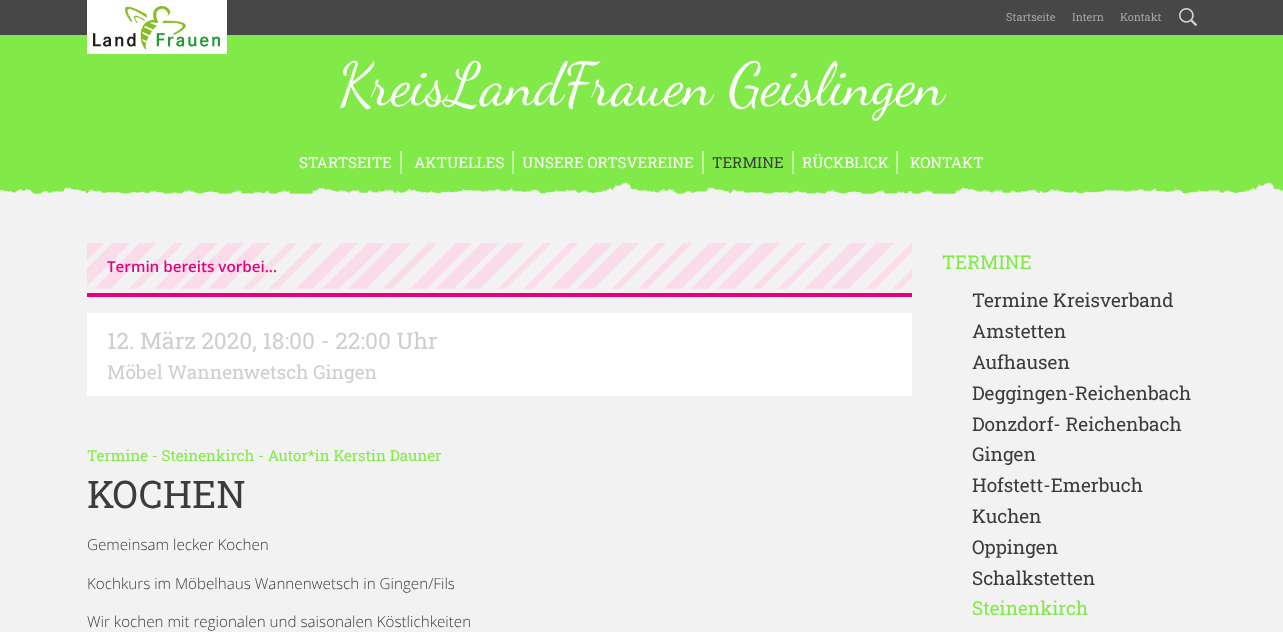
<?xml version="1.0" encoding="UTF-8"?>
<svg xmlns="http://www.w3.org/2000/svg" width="1283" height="632">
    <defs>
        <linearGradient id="g1" gradientUnits="userSpaceOnUse" x1="281" y1="49" x2="719" y2="488"><stop offset="0" stop-color="#FADCEB"/><stop offset="0.02" stop-color="#FADCEB"/><stop offset="0.02" stop-color="#F2F2F2"/><stop offset="0.03" stop-color="#F2F2F2"/><stop offset="0.03" stop-color="#FADCEB"/><stop offset="0.05" stop-color="#FADCEB"/><stop offset="0.05" stop-color="#F2F2F2"/><stop offset="0.06" stop-color="#F2F2F2"/><stop offset="0.06" stop-color="#FADCEB"/><stop offset="0.08" stop-color="#FADCEB"/><stop offset="0.08" stop-color="#F2F2F2"/><stop offset="0.1" stop-color="#F2F2F2"/><stop offset="0.1" stop-color="#FADCEB"/><stop offset="0.11" stop-color="#FADCEB"/><stop offset="0.11" stop-color="#F2F2F2"/><stop offset="0.13" stop-color="#F2F2F2"/><stop offset="0.13" stop-color="#FADCEB"/><stop offset="0.15" stop-color="#FADCEB"/><stop offset="0.15" stop-color="#F2F2F2"/><stop offset="0.16" stop-color="#F2F2F2"/><stop offset="0.16" stop-color="#FADCEB"/><stop offset="0.18" stop-color="#FADCEB"/><stop offset="0.18" stop-color="#F2F2F2"/><stop offset="0.19" stop-color="#F2F2F2"/><stop offset="0.19" stop-color="#FADCEB"/><stop offset="0.21" stop-color="#FADCEB"/><stop offset="0.21" stop-color="#F2F2F2"/><stop offset="0.23" stop-color="#F2F2F2"/><stop offset="0.23" stop-color="#FADCEB"/><stop offset="0.24" stop-color="#FADCEB"/><stop offset="0.24" stop-color="#F2F2F2"/><stop offset="0.26" stop-color="#F2F2F2"/><stop offset="0.26" stop-color="#FADCEB"/><stop offset="0.27" stop-color="#FADCEB"/><stop offset="0.27" stop-color="#F2F2F2"/><stop offset="0.29" stop-color="#F2F2F2"/><stop offset="0.29" stop-color="#FADCEB"/><stop offset="0.31" stop-color="#FADCEB"/><stop offset="0.31" stop-color="#F2F2F2"/><stop offset="0.32" stop-color="#F2F2F2"/><stop offset="0.32" stop-color="#FADCEB"/><stop offset="0.34" stop-color="#FADCEB"/><stop offset="0.34" stop-color="#F2F2F2"/><stop offset="0.35" stop-color="#F2F2F2"/><stop offset="0.35" stop-color="#FADCEB"/><stop offset="0.37" stop-color="#FADCEB"/><stop offset="0.37" stop-color="#F2F2F2"/><stop offset="0.39" stop-color="#F2F2F2"/><stop offset="0.39" stop-color="#FADCEB"/><stop offset="0.4" stop-color="#FADCEB"/><stop offset="0.4" stop-color="#F2F2F2"/><stop offset="0.42" stop-color="#F2F2F2"/><stop offset="0.42" stop-color="#FADCEB"/><stop offset="0.44" stop-color="#FADCEB"/><stop offset="0.44" stop-color="#F2F2F2"/><stop offset="0.45" stop-color="#F2F2F2"/><stop offset="0.45" stop-color="#FADCEB"/><stop offset="0.47" stop-color="#FADCEB"/><stop offset="0.47" stop-color="#F2F2F2"/><stop offset="0.48" stop-color="#F2F2F2"/><stop offset="0.48" stop-color="#FADCEB"/><stop offset="0.5" stop-color="#FADCEB"/><stop offset="0.5" stop-color="#F2F2F2"/><stop offset="0.52" stop-color="#F2F2F2"/><stop offset="0.52" stop-color="#FADCEB"/><stop offset="0.53" stop-color="#FADCEB"/><stop offset="0.53" stop-color="#F2F2F2"/><stop offset="0.55" stop-color="#F2F2F2"/><stop offset="0.55" stop-color="#FADCEB"/><stop offset="0.56" stop-color="#FADCEB"/><stop offset="0.56" stop-color="#F2F2F2"/><stop offset="0.58" stop-color="#F2F2F2"/><stop offset="0.58" stop-color="#FADCEB"/><stop offset="0.6" stop-color="#FADCEB"/><stop offset="0.6" stop-color="#F2F2F2"/><stop offset="0.61" stop-color="#F2F2F2"/><stop offset="0.61" stop-color="#FADCEB"/><stop offset="0.63" stop-color="#FADCEB"/><stop offset="0.63" stop-color="#F2F2F2"/><stop offset="0.65" stop-color="#F2F2F2"/><stop offset="0.65" stop-color="#FADCEB"/><stop offset="0.66" stop-color="#FADCEB"/><stop offset="0.66" stop-color="#F2F2F2"/><stop offset="0.68" stop-color="#F2F2F2"/><stop offset="0.68" stop-color="#FADCEB"/><stop offset="0.69" stop-color="#FADCEB"/><stop offset="0.69" stop-color="#F2F2F2"/><stop offset="0.71" stop-color="#F2F2F2"/><stop offset="0.71" stop-color="#FADCEB"/><stop offset="0.73" stop-color="#FADCEB"/><stop offset="0.73" stop-color="#F2F2F2"/><stop offset="0.74" stop-color="#F2F2F2"/><stop offset="0.74" stop-color="#FADCEB"/><stop offset="0.76" stop-color="#FADCEB"/><stop offset="0.76" stop-color="#F2F2F2"/><stop offset="0.77" stop-color="#F2F2F2"/><stop offset="0.77" stop-color="#FADCEB"/><stop offset="0.79" stop-color="#FADCEB"/><stop offset="0.79" stop-color="#F2F2F2"/><stop offset="0.81" stop-color="#F2F2F2"/><stop offset="0.81" stop-color="#FADCEB"/><stop offset="0.82" stop-color="#FADCEB"/><stop offset="0.82" stop-color="#F2F2F2"/><stop offset="0.84" stop-color="#F2F2F2"/><stop offset="0.84" stop-color="#FADCEB"/><stop offset="0.85" stop-color="#FADCEB"/><stop offset="0.85" stop-color="#F2F2F2"/><stop offset="0.87" stop-color="#F2F2F2"/><stop offset="0.87" stop-color="#FADCEB"/><stop offset="0.89" stop-color="#FADCEB"/><stop offset="0.89" stop-color="#F2F2F2"/><stop offset="0.9" stop-color="#F2F2F2"/><stop offset="0.9" stop-color="#FADCEB"/><stop offset="0.92" stop-color="#FADCEB"/><stop offset="0.92" stop-color="#F2F2F2"/><stop offset="0.94" stop-color="#F2F2F2"/><stop offset="0.94" stop-color="#FADCEB"/><stop offset="0.95" stop-color="#FADCEB"/><stop offset="0.95" stop-color="#F2F2F2"/><stop offset="0.97" stop-color="#F2F2F2"/><stop offset="0.97" stop-color="#FADCEB"/><stop offset="0.98" stop-color="#FADCEB"/><stop offset="0.98" stop-color="#F2F2F2"/><stop offset="1" stop-color="#F2F2F2"/></linearGradient>
    </defs>
    <rect width="100%" height="100%" fill="#F2F2F2"/>
    <rect x="0" y="0" width="1283" height="35" fill="#474747"/>
    <rect x="0" y="35" width="1283" height="159" fill="#81EA48"/>
    <rect x="87" y="0" width="140" height="54" fill="#FFFFFF"/>
    <image x="93" y="6" width="127" height="44" href="img_01.png"/>
    <text x="1006" y="21" font-family="Roboto Slab" font-size="11" fill="#A3A3A3">Startseite</text>
    <text x="1072" y="21" font-family="Roboto Slab" font-size="11" fill="#A3A3A3">Intern</text>
    <text x="1120" y="21" font-family="Roboto Slab" font-size="11" fill="#A3A3A3">Kontakt</text>
    <image x="1179" y="8" width="18" height="18" href="img_02.png"/>
    <text x="338" y="104" font-family="Dancing Script" font-size="60" fill="#FFFFFF">KreisLandFrauen Geislingen</text>
    <image x="0" y="181" width="1283" height="14" href="img_03.png"/>
    <rect x="400" y="151" width="2" height="23" fill="#C0F4A3"/>
    <text x="299" y="168" font-family="Roboto Slab" font-size="15.2" fill="#FFFFFF">STARTSEITE</text>
    <rect x="512" y="151" width="2" height="23" fill="#C0F4A3"/>
    <text x="414" y="168" font-family="Roboto Slab" font-size="15.2" fill="#FFFFFF">AKTUELLES</text>
    <rect x="702" y="151" width="2" height="23" fill="#C0F4A3"/>
    <text x="522" y="168" font-family="Roboto Slab" font-size="15.2" fill="#FFFFFF">UNSERE ORTSVEREINE</text>
    <rect x="792" y="151" width="2" height="23" fill="#C0F4A3"/>
    <text x="712" y="168" font-family="Roboto Slab" font-size="15.2" fill="#3C3C3B">TERMINE</text>
    <rect x="896" y="151" width="2" height="23" fill="#C0F4A3"/>
    <text x="802" y="168" font-family="Roboto Slab" font-size="15.2" fill="#FFFFFF">RÜCKBLICK</text>
    <text x="910" y="168" font-family="Roboto Slab" font-size="15.2" fill="#FFFFFF">KONTAKT</text>
    <rect x="87" y="243" width="825" height="46" fill="url(#g1)"/>
    <rect x="87" y="293" width="825" height="4" fill="#E6007E"/>
    <text x="107" y="272" font-family="Open Sans" font-size="15.2" font-weight="600" fill="#E6007E">Termin bereits vorbei...</text>
    <rect x="87" y="313" width="825" height="83" fill="#FFFFFF"/>
    <text x="107" y="349" font-family="Roboto Slab" font-size="22.75" fill="#CECECE">12. März 2020, 18:00 - 22:00 Uhr</text>
    <text x="107" y="379" font-family="Roboto Slab" font-size="19" fill="#CECECE">Möbel Wannenwetsch Gingen</text>
    <text x="87" y="461" font-family="Roboto Slab" font-size="15.2" fill="#81EA48">Termine - Steinenkirch - Autor*in Kerstin Dauner</text>
    <text x="87" y="508" font-family="Roboto Slab" font-size="38" fill="#3C3C3B">KOCHEN</text>
    <text x="87" y="550" font-family="Open Sans" font-size="15.2" font-weight="300" fill="#3C3C3B">Gemeinsam lecker Kochen</text>
    <text x="87" y="589" font-family="Open Sans" font-size="15.2" font-weight="300" fill="#3C3C3B">Kochkurs im Möbelhaus Wannenwetsch in Gingen/Fils</text>
    <text x="87" y="627" font-family="Open Sans" font-size="15.2" font-weight="300" fill="#3C3C3B">Wir kochen mit regionalen und saisonalen Köstlichkeiten</text>
    <text x="942" y="269" font-family="Roboto Slab" font-size="19" fill="#81EA48">TERMINE</text>
    <text font-family="Roboto Slab" font-size="19" fill="#3C3C3B">
        <tspan x="972" y="307">Termine Kreisverband</tspan>
        <tspan x="972" y="338">Amstetten</tspan>
        <tspan x="972" y="369">Aufhausen</tspan>
        <tspan x="972" y="400">Deggingen-Reichenbach</tspan>
        <tspan x="972" y="431">Donzdorf- Reichenbach</tspan>
        <tspan x="972" y="461">Gingen</tspan>
        <tspan x="972" y="492">Hofstett-Emerbuch</tspan>
        <tspan x="972" y="523">Kuchen</tspan>
        <tspan x="972" y="554">Oppingen</tspan>
        <tspan x="972" y="585">Schalkstetten</tspan>
    </text>
    <text x="972" y="615" font-family="Roboto Slab" font-size="19" fill="#81EA48">Steinenkirch</text>
</svg>
